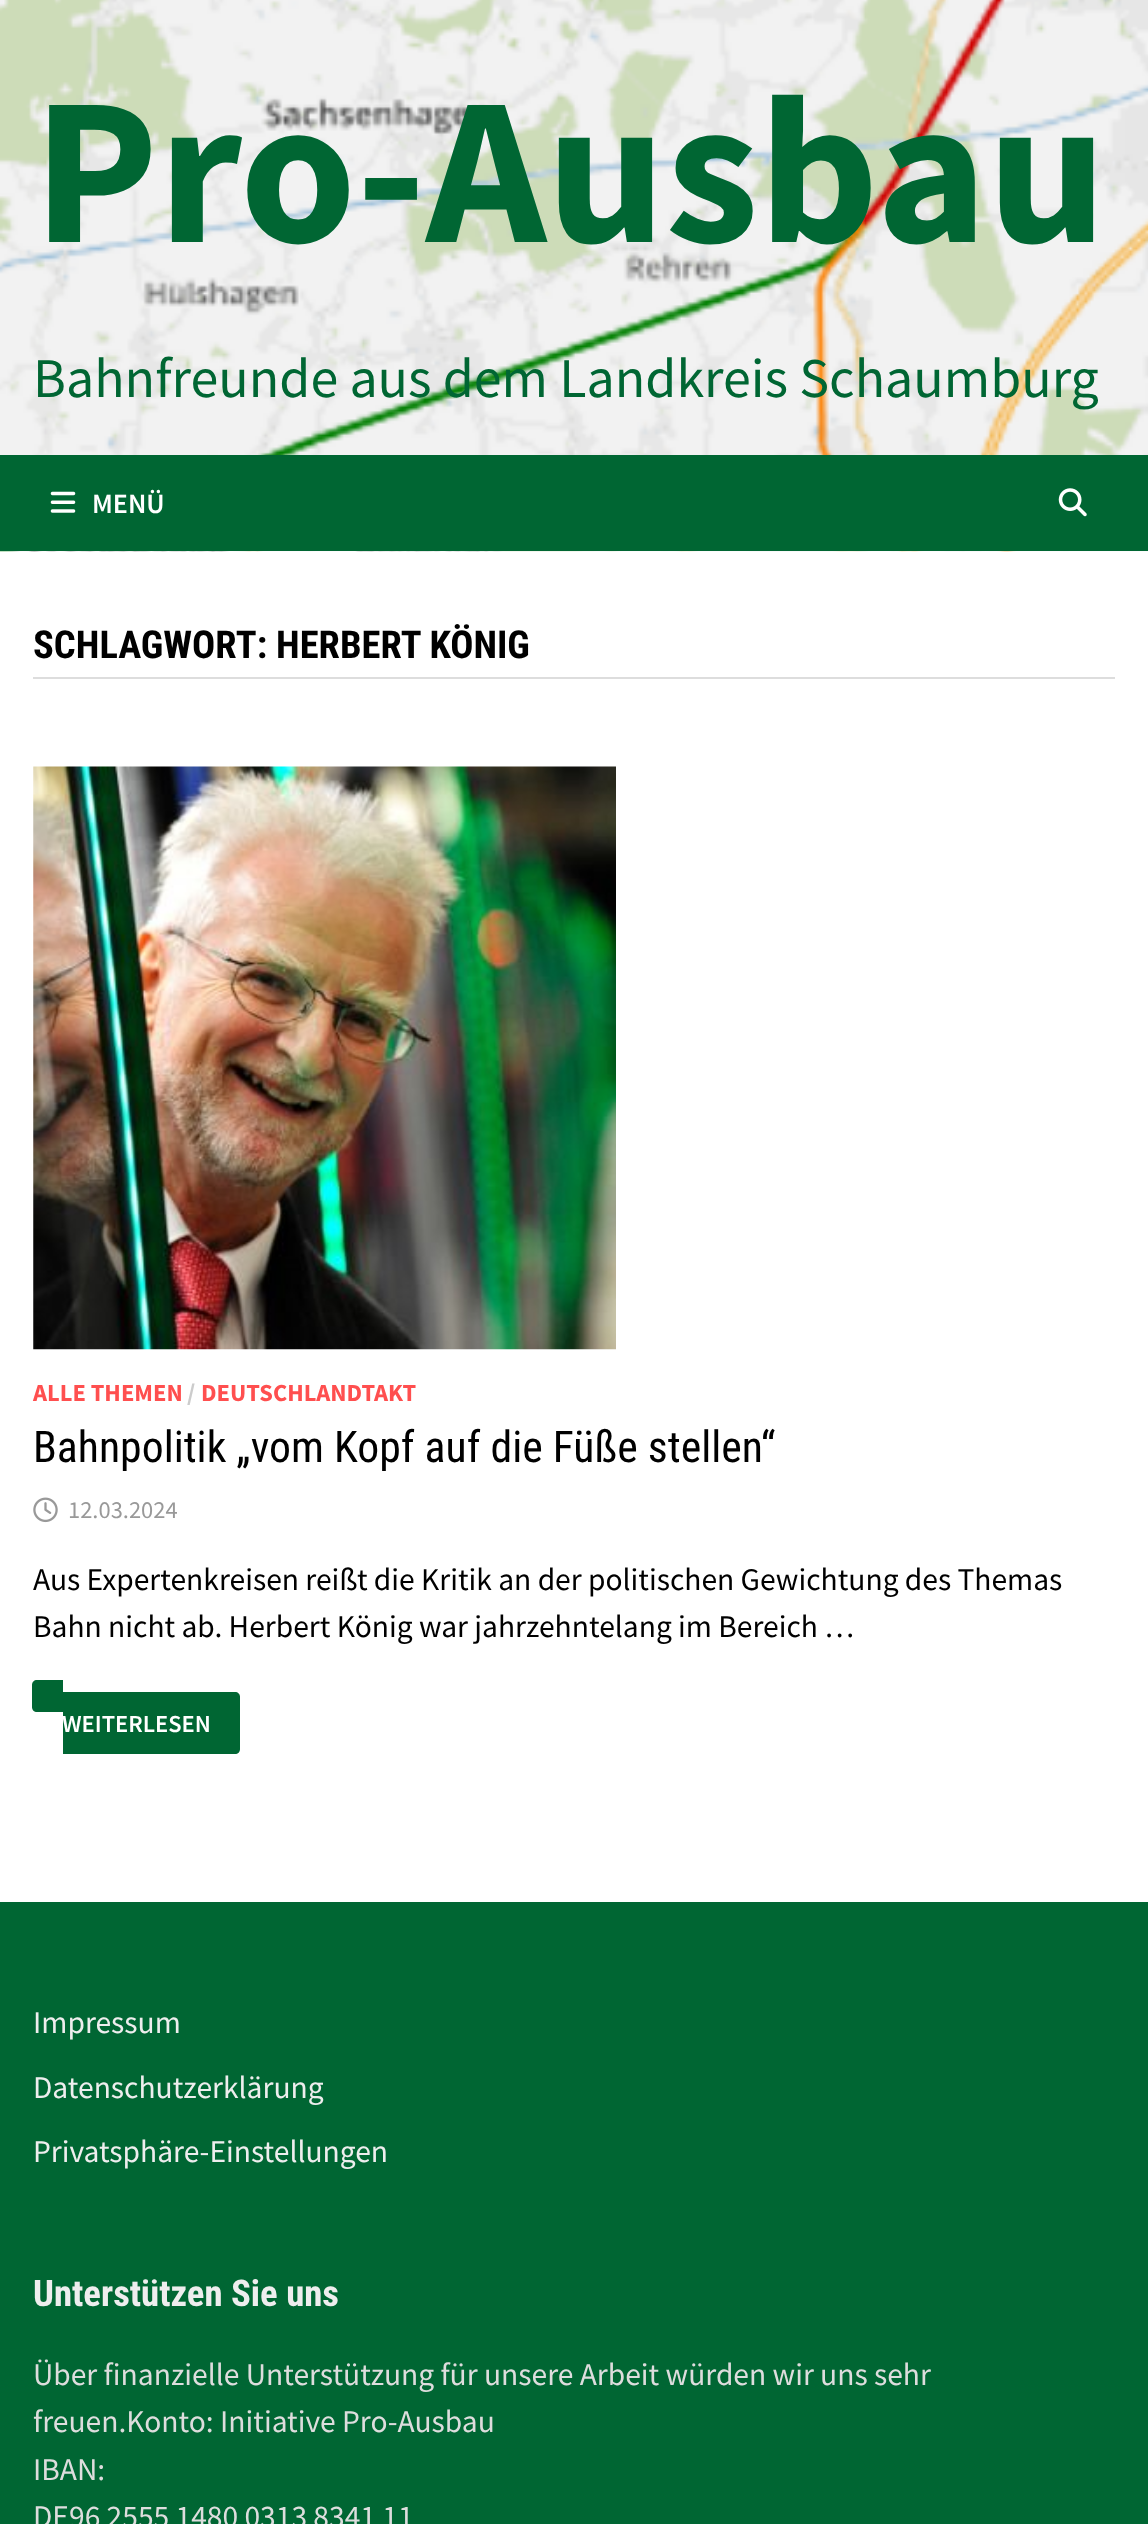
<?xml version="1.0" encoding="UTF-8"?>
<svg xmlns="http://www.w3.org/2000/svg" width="1148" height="2524">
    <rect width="100%" height="100%" fill="#FFFFFF"/>
    <image x="0" y="0" width="1148" height="552" href="img_01.png"/>
    <text x="33" y="242" font-family="Source Sans Pro" font-size="210" font-weight="700" fill="#006633">Pro-Ausbau</text>
    <text x="33" y="397" font-family="Source Sans Pro" font-size="56" fill="#006633">Bahnfreunde aus dem Landkreis Schaumburg</text>
    <rect x="0" y="455" width="1148" height="96" fill="#006633"/>
    <image x="50" y="491" width="26" height="22" href="img_02.png"/>
    <text x="92" y="513" font-family="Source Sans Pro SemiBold" font-size="28" font-weight="600" fill="#FFFFFF">MENÜ</text>
    <image x="1058" y="488" width="29" height="29" href="img_03.png"/>
    <rect x="33" y="677" width="1082" height="2" fill="#DDDDDD"/>
    <text x="33" y="658" font-family="Roboto Condensed" font-size="38.5" font-weight="700" fill="#000000">SCHLAGWORT: HERBERT KÖNIG</text>
    <image x="33" y="766" width="583" height="584" href="img_04.png"/>
    <text x="33" y="1401" font-family="Source Sans Pro" font-size="24.5" font-weight="700" fill="#FF4F4F">ALLE THEMEN</text>
    <text x="187" y="1401" font-family="Source Sans Pro" font-size="24.5" font-weight="700" fill="#CCCCCC">/</text>
    <text x="201" y="1401" font-family="Source Sans Pro" font-size="24.5" font-weight="700" fill="#FF4F4F">DEUTSCHLANDTAKT</text>
    <text x="33" y="1462" font-family="Roboto Condensed" font-size="43.75" fill="#000000">Bahnpolitik „vom Kopf auf die Füße stellen“</text>
    <image x="33" y="1497" width="25" height="26" href="img_05.png"/>
    <text x="68" y="1518" font-family="Source Sans Pro" font-size="24.5" fill="#999999">12.03.2024</text>
    <text font-family="Source Sans Pro" font-size="31.5" fill="#000000">
        <tspan x="33" y="1590">Aus Expertenkreisen reißt die Kritik an der politischen Gewichtung des Themas</tspan>
        <tspan x="33" y="1637">Bahn nicht ab. Herbert König war jahrzehntelang im Bereich …</tspan>
    </text>
    <path d="M 63 1692 H 235 C 238 1692 240 1694 240 1697 V 1749 C 240 1752 238 1754 235 1754 H 63 Z" fill="#006633"/>
    <text x="62" y="1732" font-family="Source Sans Pro SemiBold" font-size="24.5" font-weight="600" fill="#FFFFFF">WEITERLESEN</text>
    <path d="M 37 1680 H 63 V 1712 H 37 C 34 1712 32 1710 32 1707 V 1685 C 32 1682 34 1680 37 1680 Z" fill="#006633"/>
    <rect x="0" y="1902" width="1148" height="622" fill="#006633"/>
    <text x="33" y="2033" font-family="Source Sans Pro" font-size="31.5" fill="#EEEEEE">Impressum</text>
    <text x="33" y="2098" font-family="Source Sans Pro" font-size="31.5" fill="#EEEEEE">Datenschutzerklärung</text>
    <text x="33" y="2162" font-family="Source Sans Pro" font-size="31.5" fill="#EEEEEE">Privatsphäre-Einstellungen</text>
    <text x="33" y="2306" font-family="Roboto Condensed" font-size="36.75" font-weight="700" fill="#EEEEEE">Unterstützen Sie uns</text>
    <text font-family="Source Sans Pro" font-size="31.5" fill="#DDDDDD">
        <tspan x="33" y="2385">Über finanzielle Unterstützung für unsere Arbeit würden wir uns sehr</tspan>
        <tspan x="33" y="2432">freuen.Konto: Initiative Pro-Ausbau</tspan>
        <tspan x="33" y="2480">IBAN:</tspan>
        <tspan x="33" y="2527">DE96 2555 1480 0313 8341 11</tspan>
    </text>
</svg>
